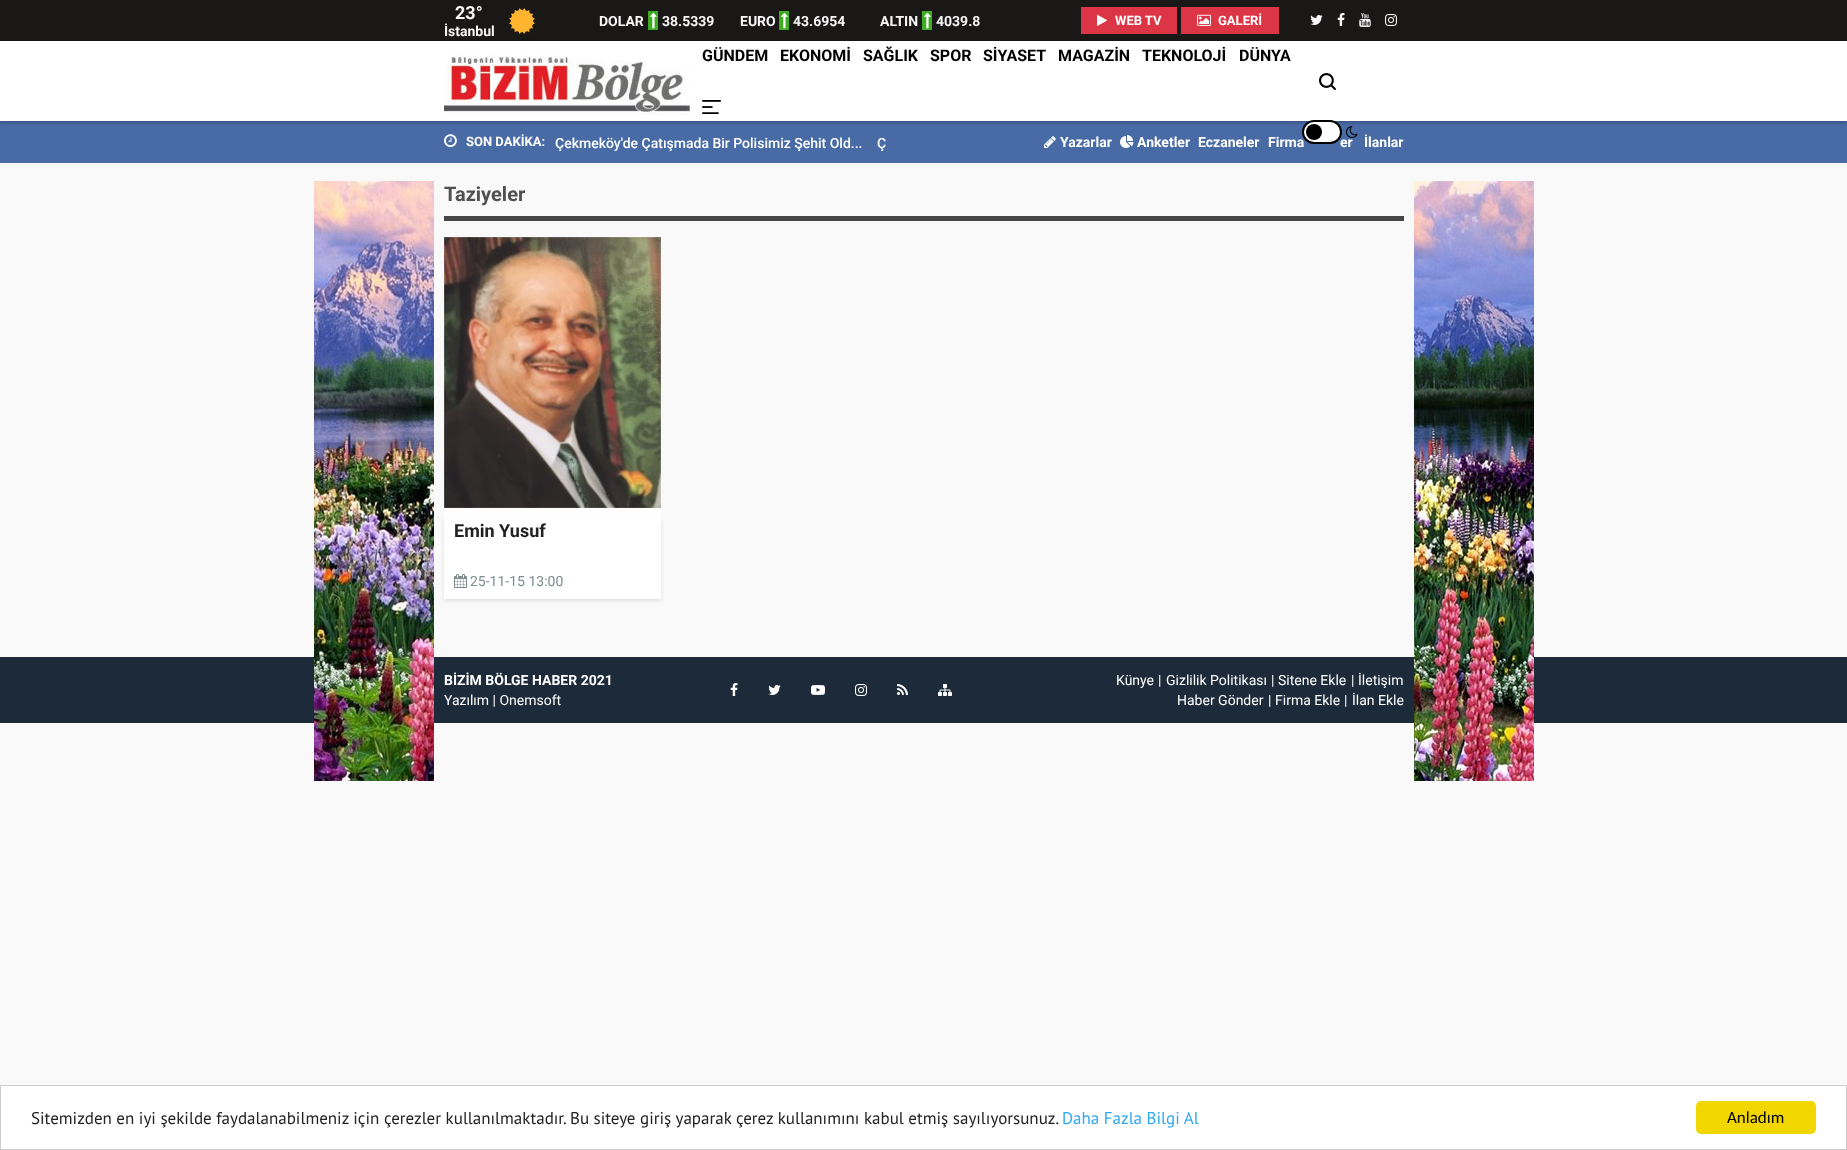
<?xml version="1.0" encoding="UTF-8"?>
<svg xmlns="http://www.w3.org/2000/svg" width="1847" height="1150">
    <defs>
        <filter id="blur1" x="-50%" y="-200%" width="200%" height="500%"><feGaussianBlur stdDeviation="2"/></filter>
        <clipPath id="clip1"><path d="M 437 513 H 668 V 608 H 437 Z M 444 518 H 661 V 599 H 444 Z" clip-rule="evenodd"/></clipPath>
    </defs>
    <rect width="100%" height="100%" fill="#F9F9F9"/>
    <rect x="0" y="0" width="1847" height="41" fill="#1A1717"/>
    <text x="455" y="19" font-family="Roboto" font-size="18" font-weight="700" fill="#F8F8F8">23°</text>
    <text x="444" y="36" font-family="Roboto" font-size="14" font-weight="700" fill="#F8F8F8">İstanbul</text>
    <image x="509" y="8" width="26" height="26" href="img_01.png"/>
    <text x="599" y="26" font-family="Roboto" font-size="14" font-weight="700" fill="#F8F8F8">DOLAR</text>
    <rect x="648" y="11" width="10" height="19" fill="#40AC24"/>
    <image x="650" y="12" width="7" height="17" href="img_02.png"/>
    <text x="662" y="26" font-family="Roboto" font-size="14" font-weight="700" fill="#F8F8F8">38.5339</text>
    <text x="740" y="26" font-family="Roboto" font-size="14" font-weight="700" fill="#F8F8F8">EURO</text>
    <rect x="779" y="11" width="10" height="19" fill="#40AC24"/>
    <image x="781" y="12" width="7" height="17" href="img_02.png"/>
    <text x="793" y="26" font-family="Roboto" font-size="14" font-weight="700" fill="#F8F8F8">43.6954</text>
    <text x="880" y="26" font-family="Roboto" font-size="14" font-weight="700" fill="#F8F8F8">ALTIN</text>
    <rect x="922" y="11" width="10" height="19" fill="#40AC24"/>
    <image x="924" y="12" width="7" height="17" href="img_02.png"/>
    <text x="936" y="26" font-family="Roboto" font-size="14" font-weight="700" fill="#F8F8F8">4039.8</text>
    <rect x="1081" y="7" width="96" height="27" fill="#DC3545"/>
    <image x="1097" y="14" width="11" height="12" href="img_03.png"/>
    <text x="1115" y="25" font-family="Roboto" font-size="13" font-weight="700" fill="#FFFFFF">WEB TV</text>
    <rect x="1181" y="7" width="98" height="27" fill="#DC3545"/>
    <image x="1197" y="14" width="14" height="12" href="img_04.png"/>
    <text x="1218" y="25" font-family="Roboto" font-size="13" font-weight="700" fill="#FFFFFF">GALERİ</text>
    <image x="1310" y="15" width="13" height="10" href="img_05.png"/>
    <image x="1337" y="13" width="8" height="13" href="img_06.png"/>
    <image x="1359" y="13" width="12" height="14" href="img_07.png"/>
    <image x="1385" y="14" width="12" height="12" href="img_08.png"/>
    <rect x="0" y="121" width="1847" height="42" fill="#486AA5"/>
    <rect x="0" y="42" width="1847" height="80" fill="#000000" fill-opacity="0.3" filter="url(#blur1)"/>
    <rect x="0" y="41" width="1847" height="80" fill="#FFFFFF"/>
    <image x="444" y="55" width="247" height="60" href="img_09.png"/>
    <text x="702" y="61" font-family="Roboto" font-size="16" font-weight="700" fill="#000000">GÜNDEM</text>
    <text x="780" y="61" font-family="Roboto" font-size="16" font-weight="700" fill="#000000">EKONOMİ</text>
    <text x="863" y="61" font-family="Roboto" font-size="16" font-weight="700" fill="#000000">SAĞLIK</text>
    <text x="930" y="61" font-family="Roboto" font-size="16" font-weight="700" fill="#000000">SPOR</text>
    <text x="983" y="61" font-family="Roboto" font-size="16" font-weight="700" fill="#000000">SİYASET</text>
    <text x="1058" y="61" font-family="Roboto" font-size="16" font-weight="700" fill="#000000">MAGAZİN</text>
    <text x="1142" y="61" font-family="Roboto" font-size="16" font-weight="700" fill="#000000">TEKNOLOJİ</text>
    <text x="1239" y="61" font-family="Roboto" font-size="16" font-weight="700" fill="#000000">DÜNYA</text>
    <image x="702" y="100" width="19" height="14" href="img_10.png"/>
    <image x="1319" y="73" width="17" height="17" href="img_11.png"/>
    <rect x="1303" y="121" width="38" height="22" rx="11" fill="#FFFFFF" stroke="#000000" stroke-width="2"/>
    <circle cx="1314" cy="132" r="8" fill="#000000"/>
    <image x="1346" y="126" width="12" height="12" href="img_12.png"/>
    <image x="444" y="134" width="13" height="14" href="img_13.png"/>
    <text x="466" y="146" font-family="Roboto" font-size="13" font-weight="700" fill="#FFFFFF">SON DAKİKA:</text>
    <text x="555" y="148" font-family="Roboto" font-size="14" font-weight="500" fill="#FFFFFF">Çekmeköy'de Çatışmada Bir Polisimiz Şehit Old...</text>
    <text x="877" y="148" font-family="Roboto" font-size="14" font-weight="500" fill="#FFFFFF">Ç</text>
    <image x="1044" y="136" width="12" height="12" href="img_14.png"/>
    <text x="1060" y="147" font-family="Roboto" font-size="14" font-weight="700" fill="#FFFFFF">Yazarlar</text>
    <image x="1120" y="135" width="14" height="13" href="img_15.png"/>
    <text x="1137" y="147" font-family="Roboto" font-size="14" font-weight="700" fill="#FFFFFF">Anketler</text>
    <text x="1198" y="147" font-family="Roboto" font-size="14" font-weight="700" fill="#FFFFFF">Eczaneler</text>
    <text x="1268" y="147" font-family="Roboto" font-size="14" font-weight="700" fill="#FFFFFF">Firma</text>
    <text x="1340" y="147" font-family="Roboto" font-size="14" font-weight="700" fill="#FFFFFF">er</text>
    <text x="1364" y="147" font-family="Roboto" font-size="14" font-weight="700" fill="#FFFFFF">İlanlar</text>
    <rect x="0" y="657" width="1847" height="66" fill="#1C2A39"/>
    <image x="314" y="181" width="120" height="600" href="img_16.png"/>
    <rect x="444" y="216" width="960" height="5" fill="#474747"/>
    <text x="444" y="201" font-family="Roboto" font-size="20" font-weight="700" fill="#505050">Taziyeler</text>
    <rect x="444" y="237" width="217" height="362" fill="#FFFFFF"/>
    <image x="444" y="237" width="217" height="271" href="img_17.png"/>
    <g clip-path="url(#clip1)">
        <rect x="444" y="520" width="217" height="81" fill="#000000" fill-opacity="0.1" filter="url(#blur1)"/>
    </g>
    <text x="454" y="537" font-family="Roboto" font-size="18" font-weight="700" fill="#222222">Emin Yusuf</text>
    <image x="454" y="574" width="13" height="14" href="img_18.png"/>
    <text x="470" y="586" font-family="Roboto" font-size="14" fill="#7F8C8D">25-11-15 13:00</text>
    <image x="1414" y="181" width="120" height="600" href="img_19.png"/>
    <text x="444" y="685" font-family="Roboto" font-size="14" font-weight="700" fill="#FFFFFF">BİZİM BÖLGE HABER 2021</text>
    <text x="444" y="705" font-family="Roboto" font-size="14" fill="#FFFFFF">Yazılım | Onemsoft</text>
    <image x="730" y="683" width="8" height="13" href="img_20.png"/>
    <image x="768" y="685" width="13" height="10" href="img_21.png"/>
    <image x="811" y="685" width="14" height="10" href="img_22.png"/>
    <image x="855" y="684" width="12" height="12" href="img_23.png"/>
    <image x="897" y="684" width="11" height="11" href="img_24.png"/>
    <image x="938" y="684" width="14" height="12" href="img_25.png"/>
    <text x="1116" y="685" font-family="Roboto" font-size="14" fill="#FFFFFF">Künye</text>
    <text x="1158" y="685" font-family="Roboto" font-size="14" fill="#FFFFFF">|</text>
    <text x="1166" y="685" font-family="Roboto" font-size="14" fill="#FFFFFF">Gizlilik Politikası</text>
    <text x="1271" y="685" font-family="Roboto" font-size="14" fill="#FFFFFF">|</text>
    <text x="1278" y="685" font-family="Roboto" font-size="14" fill="#FFFFFF">Sitene Ekle</text>
    <text x="1351" y="685" font-family="Roboto" font-size="14" fill="#FFFFFF">|</text>
    <text x="1358" y="685" font-family="Roboto" font-size="14" fill="#FFFFFF">İletişim</text>
    <text x="1177" y="705" font-family="Roboto" font-size="14" fill="#FFFFFF">Haber Gönder</text>
    <text x="1268" y="705" font-family="Roboto" font-size="14" fill="#FFFFFF">|</text>
    <text x="1275" y="705" font-family="Roboto" font-size="14" fill="#FFFFFF">Firma Ekle</text>
    <text x="1344" y="705" font-family="Roboto" font-size="14" fill="#FFFFFF">|</text>
    <text x="1352" y="705" font-family="Roboto" font-size="14" fill="#FFFFFF">İlan Ekle</text>
    <rect x="0.5" y="1085.5" width="1846" height="64" fill="#FFFFFF" stroke="#CCCCCC"/>
    <text x="31" y="1124" font-family="PT Sans" font-size="17" fill="#222222">Sitemizden en iyi şekilde faydalanabilmeniz için çerezler kullanılmaktadır. Bu siteye giriş yaparak çerez kullanımını kabul etmiş sayılıyorsunuz.</text>
    <text x="1062" y="1124" font-family="PT Sans" font-size="17" fill="#31A8F0">Daha Fazla Bilgi Al</text>
    <rect x="1696" y="1101" width="120" height="33" rx="5" fill="#F1D600"/>
    <text x="1727" y="1123" font-family="Carlito" font-size="17" fill="#000000">Anladım</text>
</svg>
